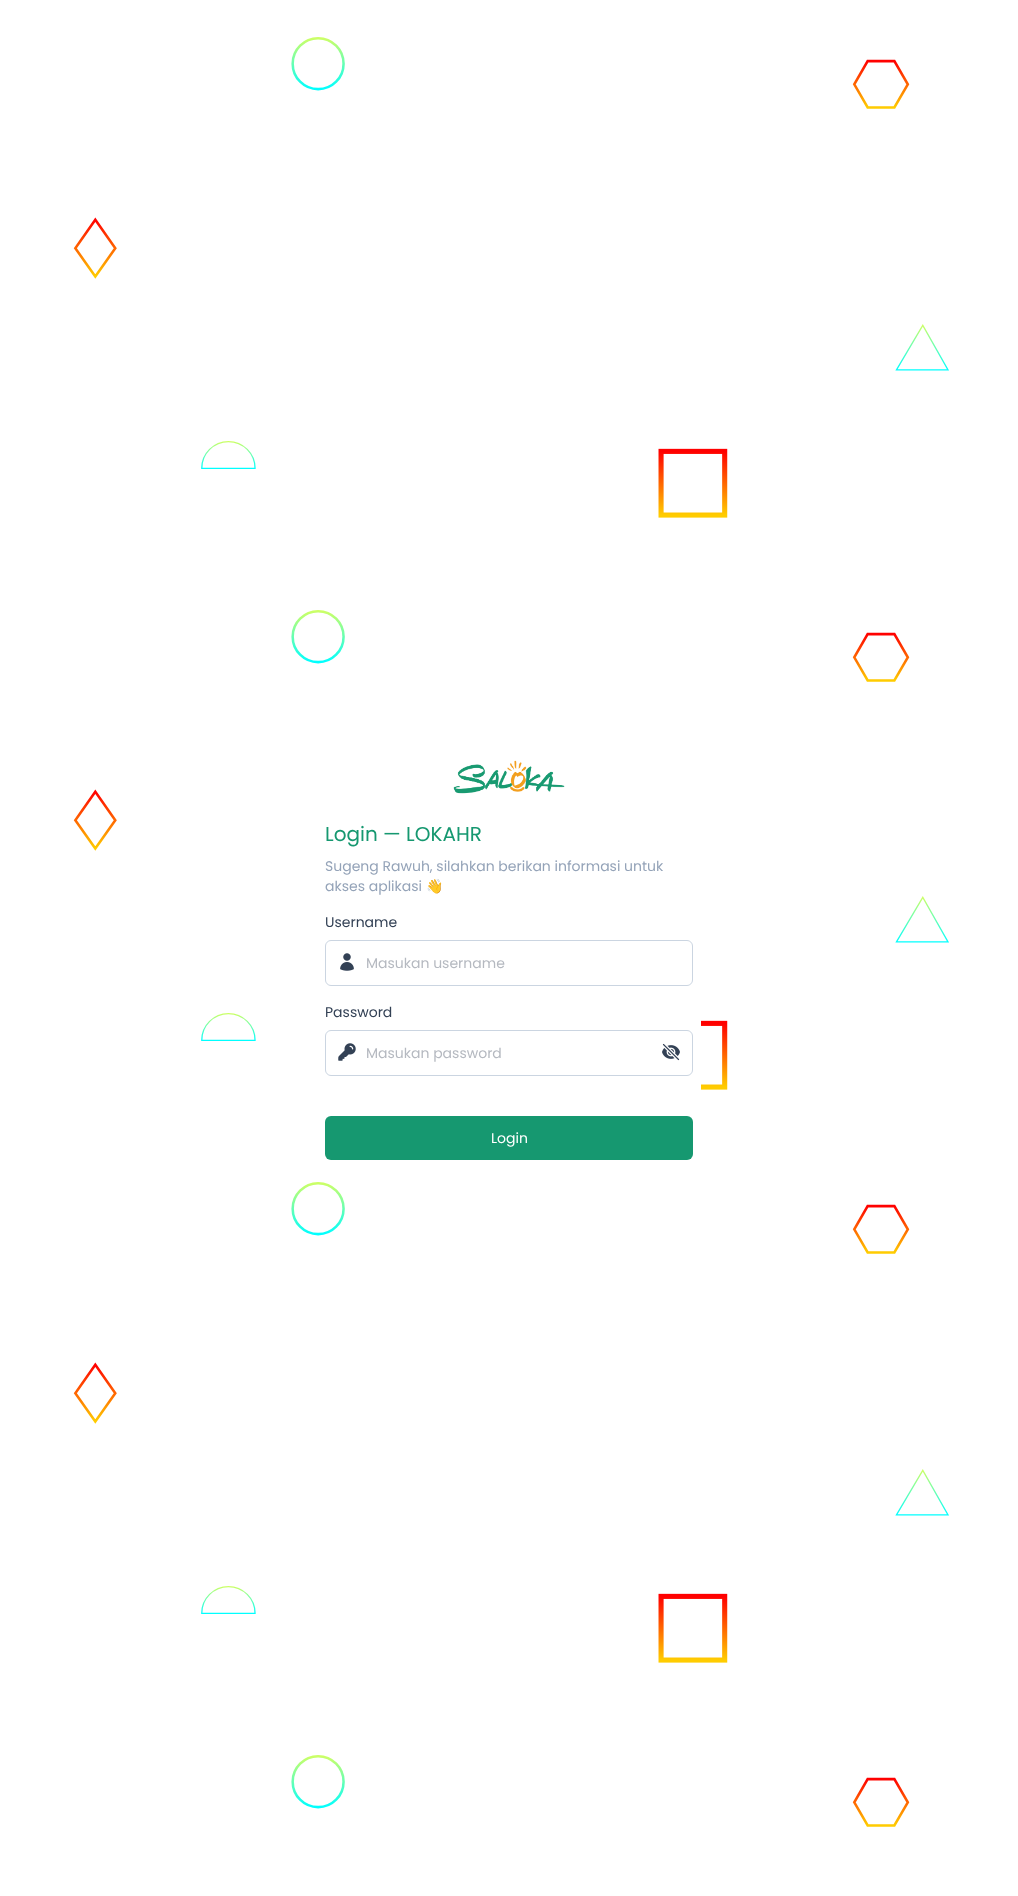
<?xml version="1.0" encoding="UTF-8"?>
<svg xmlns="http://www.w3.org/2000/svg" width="1018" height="1896">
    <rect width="100%" height="100%" fill="#FFFFFF"/>
    <image x="73" y="37" width="876" height="1790" href="img_01.png"/>
    <image x="453" y="760" width="112" height="34" href="img_02.png"/>
    <rect x="317" y="820" width="384" height="340" rx="8" fill="#FFFFFF"/>
    <text x="325" y="841" font-family="Poppins" font-size="20" fill="#169870">Login — LOKAHR</text>
    <text font-family="Poppins" font-size="14" fill="#94A3B8">
        <tspan x="325" y="871">Sugeng Rawuh, silahkan berikan informasi untuk</tspan>
        <tspan x="325" y="891">akses aplikasi</tspan>
    </text>
    <text x="426" y="891" font-family="Noto Color Emoji" font-size="14" fill="#94A3B8">👋</text>
    <text x="325" y="927" font-family="Poppins" font-size="14" fill="#334155">Username</text>
    <rect x="325.5" y="940.5" width="367" height="45" rx="5.5" fill="none" stroke="#CBD5E1"/>
    <image x="340" y="953" width="14" height="18" href="img_03.png"/>
    <text x="366" y="968" font-family="Poppins" font-size="14" fill="#B5B9C0">Masukan username</text>
    <text x="325" y="1017" font-family="Poppins" font-size="14" fill="#334155">Password</text>
    <rect x="325.5" y="1030.5" width="367" height="45" rx="5.5" fill="none" stroke="#CBD5E1"/>
    <image x="338" y="1043" width="18" height="18" href="img_04.png"/>
    <text x="366" y="1058" font-family="Poppins" font-size="14" fill="#B5B9C0">Masukan password</text>
    <image x="662" y="1043" width="18" height="18" href="img_05.png"/>
    <rect x="325" y="1116" width="368" height="44" rx="6" fill="#169870"/>
    <text x="491" y="1143" font-family="Poppins" font-size="14" fill="#FFFFFF">Login</text>
</svg>
